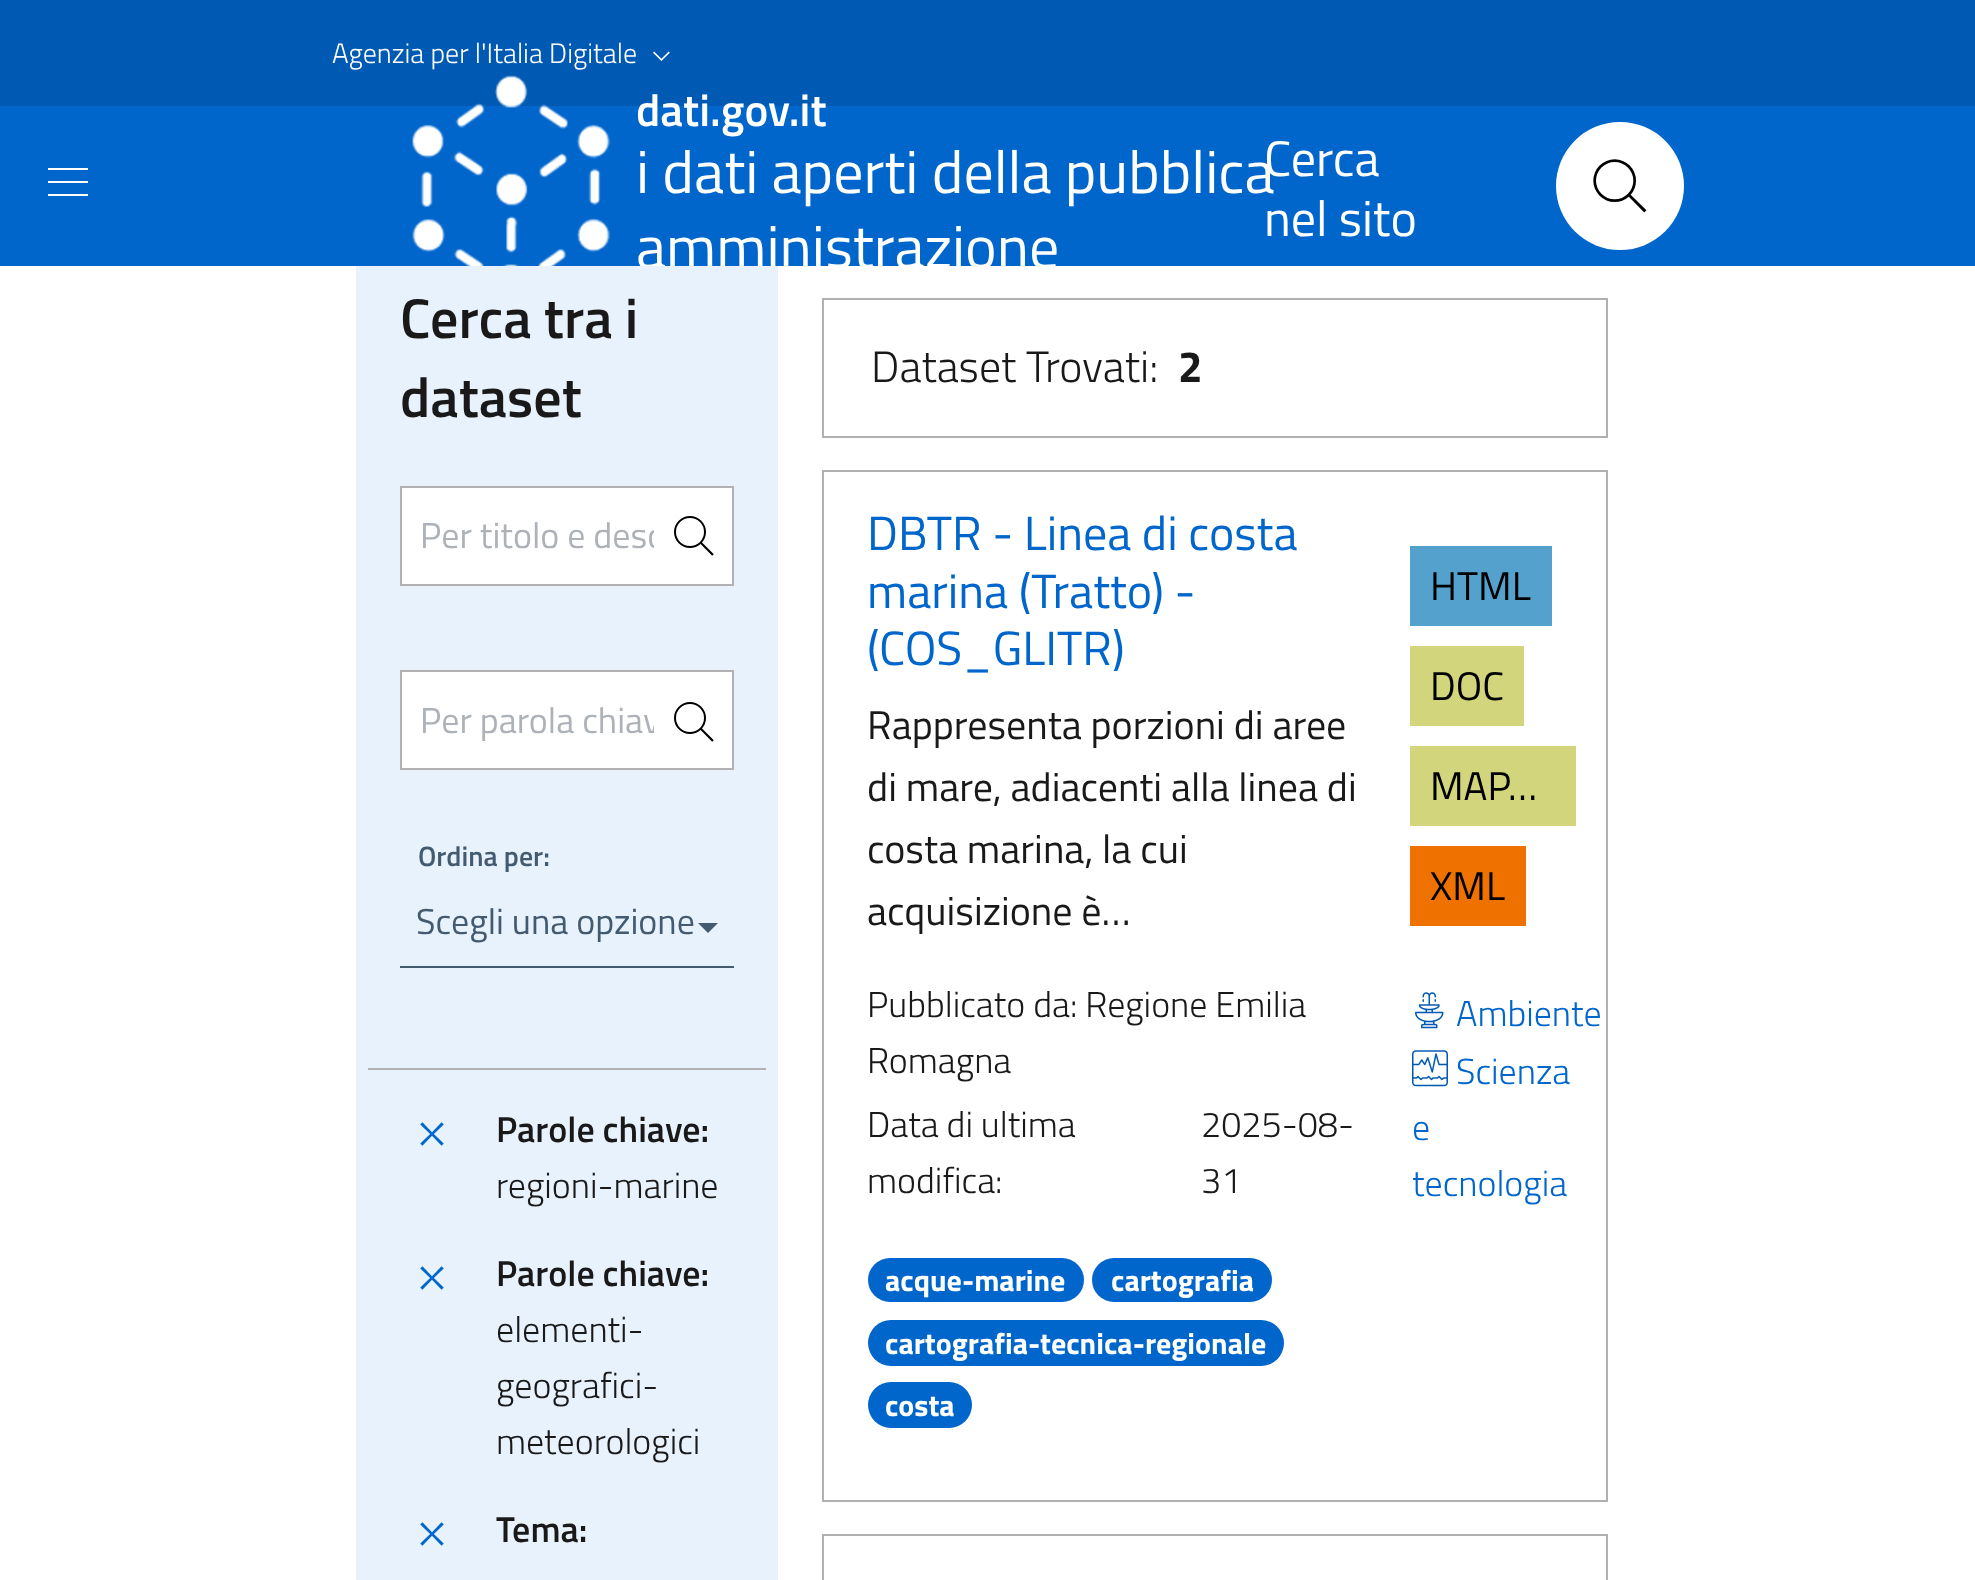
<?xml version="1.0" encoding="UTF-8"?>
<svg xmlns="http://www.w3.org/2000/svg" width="1975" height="1580">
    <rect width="100%" height="100%" fill="#FFFFFF"/>
    <rect x="0" y="0" width="1975" height="106" fill="#0059B3"/>
    <text x="332" y="63" font-family="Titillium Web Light" font-size="28" font-weight="300" fill="#FFFFFF">Agenzia per l'Italia Digitale</text>
    <image x="653" y="51" width="17" height="10" href="img_01.png"/>
    <rect x="0" y="106" width="1975" height="160" fill="#0066CC"/>
    <image x="48" y="168" width="40" height="28" href="img_02.png"/>
    <image x="412" y="75" width="199" height="191" href="img_03.png"/>
    <text x="636" y="126" font-family="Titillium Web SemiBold" font-size="45" font-weight="600" fill="#FFFFFF">dati.gov.it</text>
    <text font-family="Titillium Web" font-size="60" fill="#FFFFFF">
        <tspan x="636" y="193">i dati aperti della pubblica</tspan>
        <tspan x="636" y="268">amministrazione</tspan>
    </text>
    <text font-family="Titillium Web" font-size="50" fill="#FFFFFF">
        <tspan x="1264" y="176">Cerca</tspan>
        <tspan x="1264" y="236">nel sito</tspan>
    </text>
    <circle cx="1620" cy="186" r="64" fill="#FFFFFF"/>
    <image x="1593" y="159" width="54" height="54" href="img_04.png"/>
    <rect x="356" y="266" width="422" height="1314" fill="#E8F2FC"/>
    <text font-family="Titillium Web SemiBold" font-size="56" font-weight="600" fill="#19191A">
        <tspan x="400" y="338">Cerca tra i</tspan>
        <tspan x="400" y="417">dataset</tspan>
    </text>
    <rect x="401" y="487" width="332" height="98" fill="#FFFFFF" stroke="#B1B1B3" stroke-width="2"/>
    <text x="420" y="548" font-family="Titillium Web" font-size="36" fill="#ADB2B8">Per titolo e desc</text>
    <rect x="654" y="529" width="8" height="20" fill="#FFFFFF"/>
    <image x="674" y="516" width="40" height="40" href="img_05.png"/>
    <rect x="401" y="671" width="332" height="98" fill="#FFFFFF" stroke="#B1B1B3" stroke-width="2"/>
    <text x="420" y="733" font-family="Titillium Web" font-size="36" fill="#ADB2B8">Per parola chiav</text>
    <rect x="654" y="715" width="6" height="18" fill="#FFFFFF"/>
    <image x="674" y="702" width="40" height="40" href="img_05.png"/>
    <text x="418" y="866" font-family="Titillium Web SemiBold" font-size="28" font-weight="600" fill="#435A70">Ordina per:</text>
    <text x="416" y="934" font-family="Titillium Web" font-size="36" fill="#435A70">Scegli una opzione</text>
    <rect x="400" y="966" width="334" height="2" fill="#435A70"/>
    <path d="M 698 923 H 718 L 708 933 Z" fill="#435A70"/>
    <rect x="368" y="1068" width="398" height="2" fill="#B1B1B3"/>
    <image x="420" y="1122" width="24" height="24" href="img_06.png"/>
    <text x="496" y="1142" font-family="Titillium Web SemiBold" font-size="36" font-weight="600" fill="#19191A">Parole chiave:</text>
    <text x="496" y="1198" font-family="Titillium Web Light" font-size="36" font-weight="300" fill="#19191A">regioni-marine</text>
    <image x="420" y="1266" width="24" height="24" href="img_07.png"/>
    <text x="496" y="1286" font-family="Titillium Web SemiBold" font-size="36" font-weight="600" fill="#19191A">Parole chiave:</text>
    <text font-family="Titillium Web Light" font-size="36" font-weight="300" fill="#19191A">
        <tspan x="496" y="1342">elementi-</tspan>
        <tspan x="496" y="1398">geografici-</tspan>
        <tspan x="496" y="1454">meteorologici</tspan>
    </text>
    <image x="420" y="1522" width="24" height="24" href="img_08.png"/>
    <text x="496" y="1542" font-family="Titillium Web SemiBold" font-size="36" font-weight="600" fill="#19191A">Tema:</text>
    <rect x="823" y="299" width="784" height="138" fill="none" stroke="#B1B1B3" stroke-width="2"/>
    <text x="871" y="382" font-family="Titillium Web Light" font-size="44" font-weight="300" fill="#19191A">Dataset Trovati:</text>
    <text x="1178" y="382" font-family="Titillium Web" font-size="44" font-weight="700" fill="#19191A">2</text>
    <rect x="823" y="471" width="784" height="1030" fill="none" stroke="#B1B1B3" stroke-width="2"/>
    <text font-family="Titillium Web" font-size="48" fill="#0066CC">
        <tspan x="867" y="550">DBTR - Linea di costa</tspan>
        <tspan x="867" y="608">marina (Tratto) -</tspan>
        <tspan x="867" y="665">(COS_GLITR)</tspan>
    </text>
    <text font-family="Titillium Web" font-size="40" fill="#19191A">
        <tspan x="867" y="739">Rappresenta porzioni di aree</tspan>
        <tspan x="867" y="801">di mare, adiacenti alla linea di</tspan>
        <tspan x="867" y="863">costa marina, la cui</tspan>
        <tspan x="867" y="925">acquisizione è…</tspan>
    </text>
    <text font-family="Titillium Web Light" font-size="36" font-weight="300" fill="#19191A">
        <tspan x="867" y="1017">Pubblicato da: Regione Emilia</tspan>
        <tspan x="867" y="1073">Romagna</tspan>
        <tspan x="867" y="1137">Data di ultima</tspan>
        <tspan x="867" y="1193">modifica:</tspan>
    </text>
    <text font-family="Titillium Web Light" font-size="36" font-weight="300" fill="#19191A">
        <tspan x="1201" y="1137">2025-08-</tspan>
        <tspan x="1201" y="1193">31</tspan>
    </text>
    <rect x="868" y="1258" width="216" height="44" rx="22" fill="#0066CC"/>
    <text x="885" y="1291" font-family="Titillium Web" font-size="30" font-weight="700" fill="#FFFFFF">acque-marine</text>
    <rect x="1092" y="1258" width="180" height="44" rx="22" fill="#0066CC"/>
    <text x="1111" y="1291" font-family="Titillium Web" font-size="30" font-weight="700" fill="#FFFFFF">cartografia</text>
    <rect x="868" y="1320" width="416" height="46" rx="23" fill="#0066CC"/>
    <text x="885" y="1354" font-family="Titillium Web" font-size="30" font-weight="700" fill="#FFFFFF">cartografia-tecnica-regionale</text>
    <rect x="868" y="1382" width="104" height="46" rx="23" fill="#0066CC"/>
    <text x="885" y="1416" font-family="Titillium Web" font-size="30" font-weight="700" fill="#FFFFFF">costa</text>
    <rect x="1410" y="546" width="142" height="80" fill="#55A1CE"/>
    <text x="1430" y="600" font-family="Titillium Web" font-size="40" fill="#000000">HTML</text>
    <rect x="1410" y="646" width="114" height="80" fill="#D2D57B"/>
    <text x="1430" y="700" font-family="Titillium Web" font-size="40" fill="#000000">DOC</text>
    <rect x="1410" y="746" width="166" height="80" fill="#D2D57B"/>
    <text x="1430" y="800" font-family="Titillium Web" font-size="40" fill="#000000">MAP…</text>
    <rect x="1410" y="846" width="116" height="80" fill="#EF7100"/>
    <text x="1430" y="900" font-family="Titillium Web" font-size="40" fill="#000000">XML</text>
    <image x="1415" y="992" width="29" height="37" href="img_09.png"/>
    <text x="1456" y="1026" font-family="Titillium Web Light" font-size="36" font-weight="300" fill="#0066CC">Ambiente</text>
    <image x="1412" y="1050" width="36" height="37" href="img_10.png"/>
    <text x="1456" y="1084" font-family="Titillium Web Light" font-size="36" font-weight="300" fill="#0066CC">Scienza</text>
    <text font-family="Titillium Web Light" font-size="36" font-weight="300" fill="#0066CC">
        <tspan x="1412" y="1140">e</tspan>
        <tspan x="1412" y="1196">tecnologia</tspan>
    </text>
    <rect x="823" y="1535" width="784" height="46" fill="none" stroke="#B1B1B3" stroke-width="2"/>
</svg>
